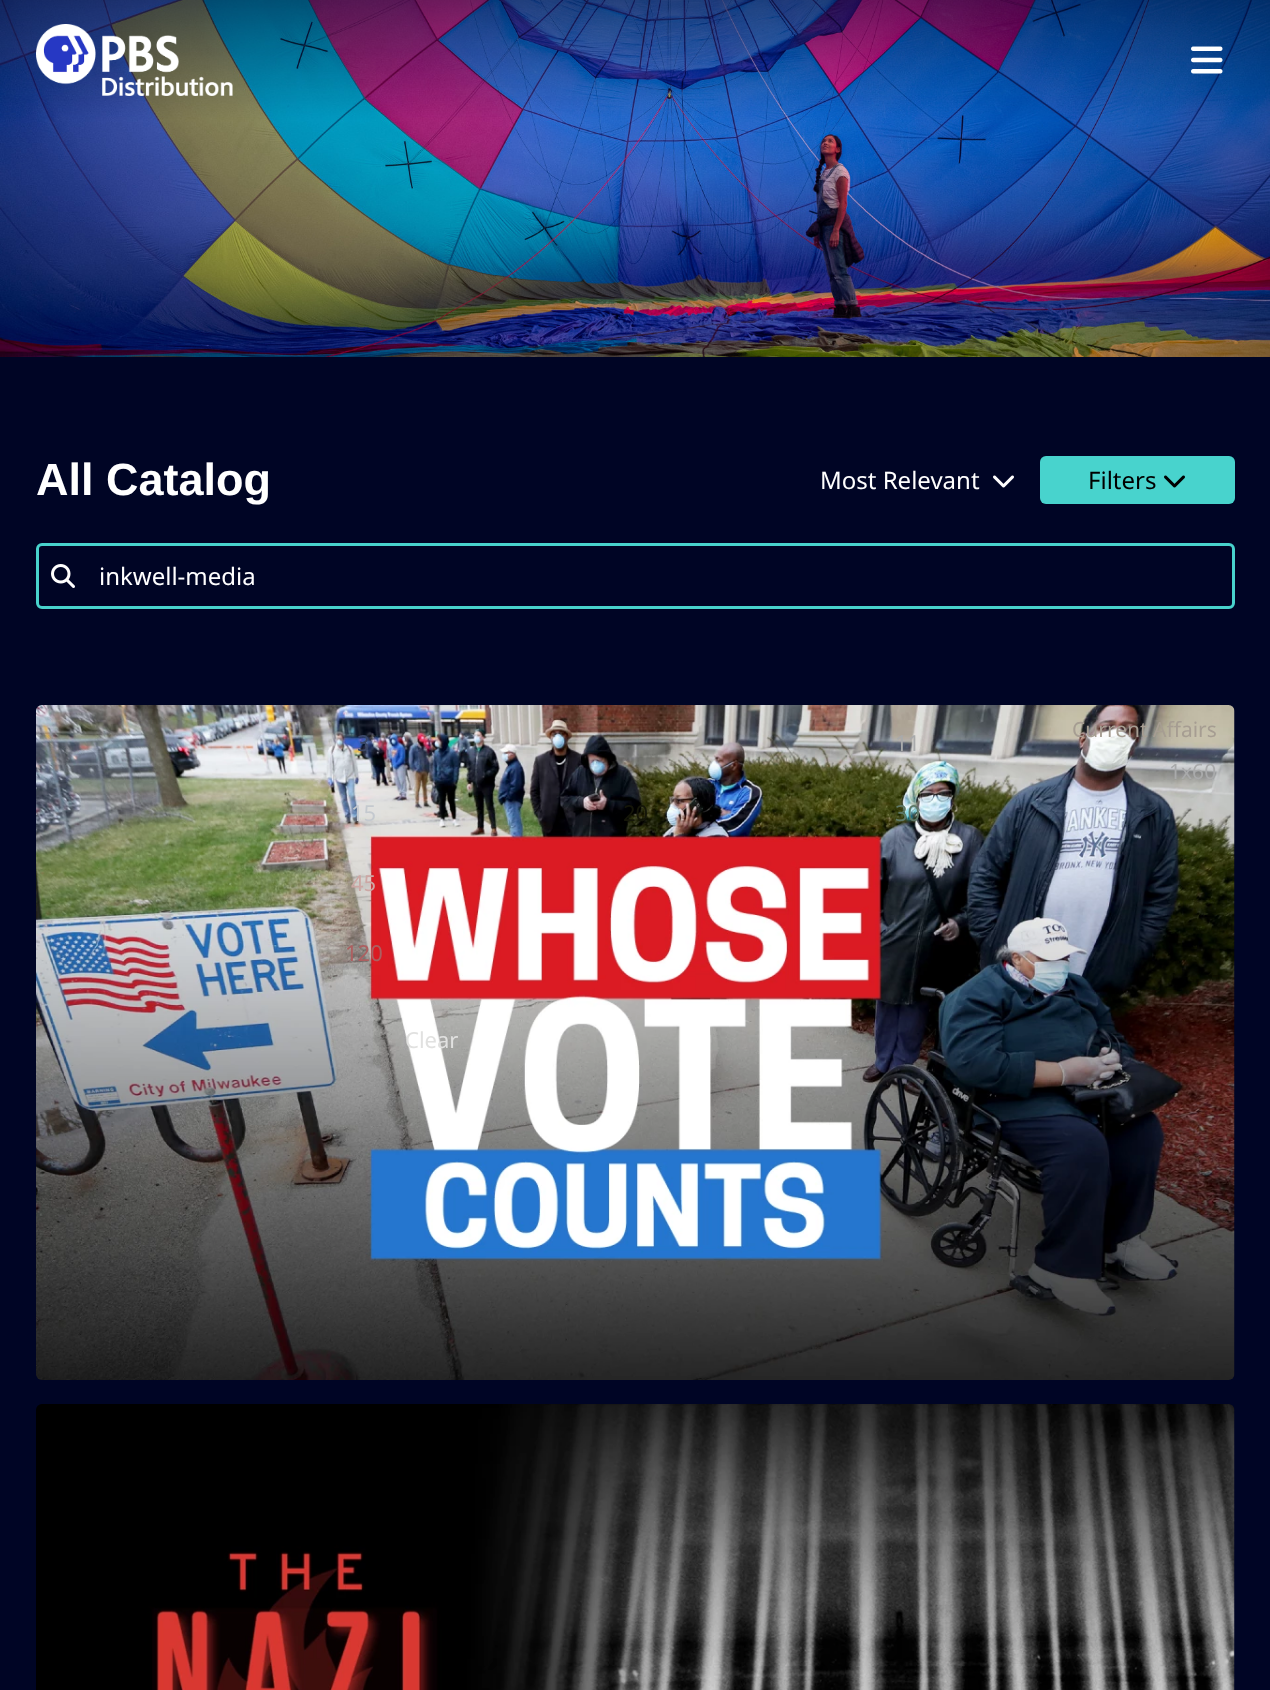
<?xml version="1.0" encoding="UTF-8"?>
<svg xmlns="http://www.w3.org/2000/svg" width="1270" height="1690">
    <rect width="100%" height="100%" fill="#000525"/>
    <image x="0" y="0" width="1270" height="357" href="img_03.png"/>
    <image x="36" y="24" width="197" height="72" href="img_01.png"/>
    <image x="1191" y="46" width="32" height="28" href="img_02.png"/>
    <text x="36" y="495" font-family="Liberation Sans" font-size="45" font-weight="700" fill="#FFFFFF">All Catalog</text>
    <text x="820" y="489" font-family="Noto Sans" font-size="24" fill="#FFFFFF">Most Relevant</text>
    <image x="993" y="475" width="21" height="13" href="img_04.png"/>
    <rect x="1040" y="456" width="195" height="48" rx="6" fill="#48D3CD"/>
    <text x="1088" y="489" font-family="Noto Sans" font-size="24" fill="#000000">Filters</text>
    <image x="1164" y="475" width="21" height="13" href="img_05.png"/>
    <rect x="37.5" y="544.5" width="1196" height="63" rx="4.5" fill="none" stroke="#48D3CD" stroke-width="3"/>
    <image x="51" y="564" width="24" height="24" href="img_06.png"/>
    <text x="99" y="585" font-family="Noto Sans" font-size="24" fill="#FFFFFF">inkwell-media</text>
    <image x="36" y="705" width="1199" height="675" href="img_07.png"/>
    <text x="357" y="751" font-family="Noto Sans" font-size="22" fill="#3C4868">3</text>
    <text x="895" y="751" font-family="Noto Sans" font-size="22" fill="#A9AAAB">11</text>
    <text x="351" y="821" font-family="Noto Sans" font-size="22" fill="#C4C9CF">15</text>
    <text x="623" y="821" font-family="Noto Sans" font-size="22" fill="#151609">20</text>
    <text x="895" y="821" font-family="Noto Sans" font-size="22" fill="#5E7867">30</text>
    <text x="351" y="891" font-family="Noto Sans" font-size="22" fill="#CCA7A4">45</text>
    <text x="345" y="961" font-family="Noto Sans" font-size="22" fill="#AD5F60">120</text>
    <text x="405" y="1048" font-family="Noto Sans" font-size="22" fill="#E1E1E0">Clear</text>
    <text x="1072" y="737" font-family="Noto Sans" font-size="21" fill="#A69D92">Current Affairs</text>
    <text x="1169" y="779" font-family="Noto Sans" font-size="21" fill="#A9AAAB">1x60</text>
    <image x="36" y="1404" width="1199" height="286" href="img_08.png"/>
</svg>
